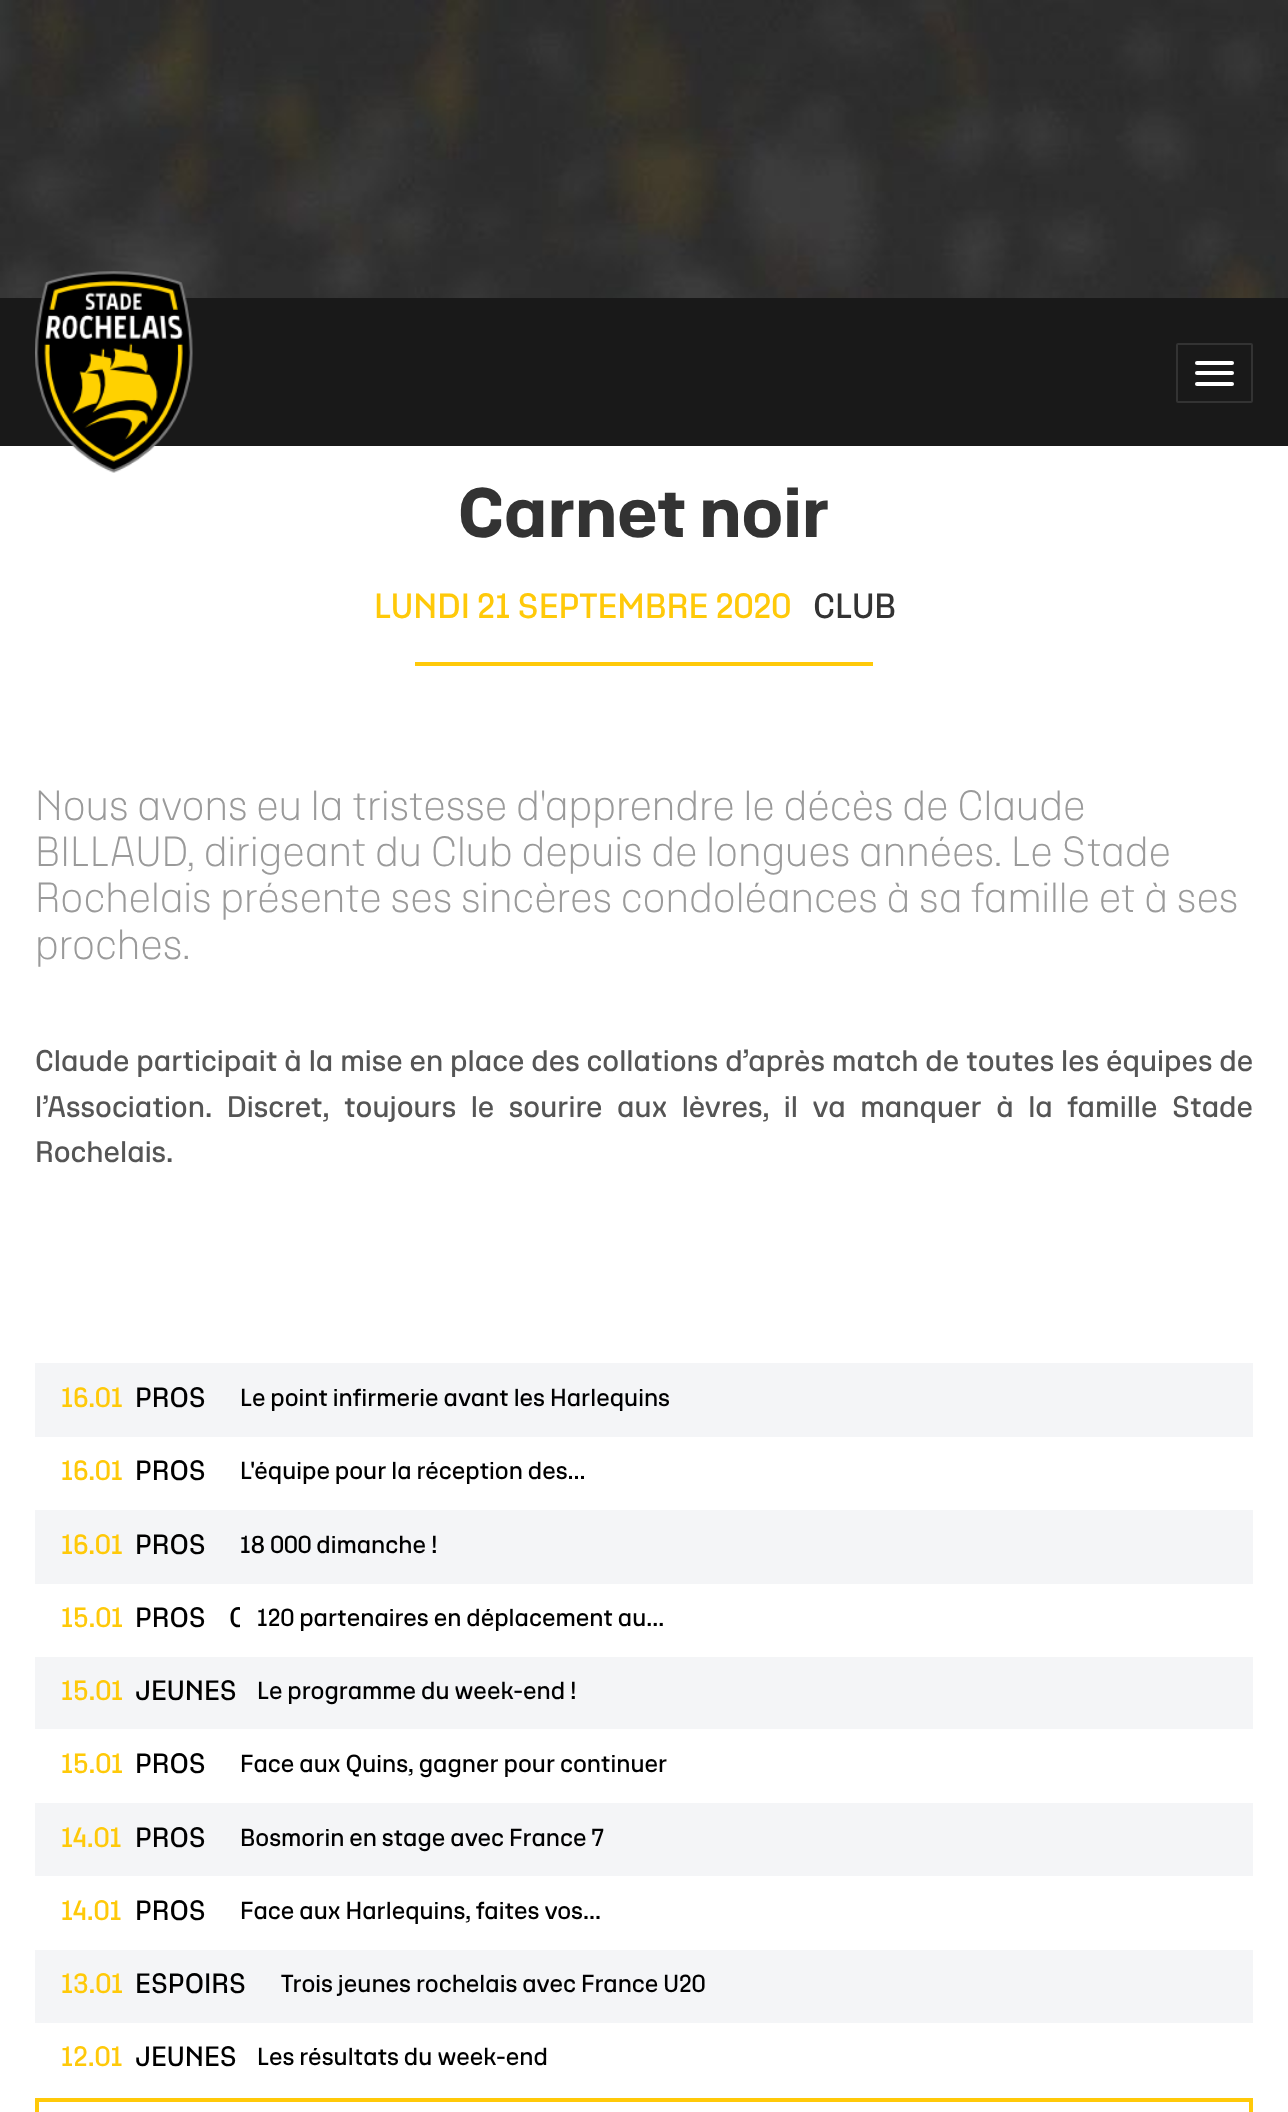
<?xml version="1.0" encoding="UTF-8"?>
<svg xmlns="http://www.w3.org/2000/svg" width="1288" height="2112">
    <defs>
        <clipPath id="clip1"><rect x="135" y="1601" width="105" height="41"/></clipPath>
    </defs>
    <rect width="100%" height="100%" fill="#FFFFFF"/>
    <image x="0" y="0" width="1288" height="298" href="img_01.png"/>
    <rect x="0" y="298" width="1288" height="148" fill="#191919"/>
    <image x="35" y="271" width="158" height="202" href="img_02.png"/>
    <rect x="1177" y="344" width="75" height="58" rx="1" fill="none" stroke="#333333" stroke-width="2"/>
    <rect x="1195" y="361" width="39" height="4" rx="2" fill="#FFFFFF"/>
    <rect x="1195" y="371" width="39" height="4" rx="2" fill="#FFFFFF"/>
    <rect x="1195" y="382" width="39" height="4" rx="2" fill="#FFFFFF"/>
    <text x="458" y="537" font-family="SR" font-size="70" font-weight="700" fill="#333333">Carnet noir</text>
    <text x="374" y="618" font-family="SR" font-size="35" fill="#FFC909">LUNDI 21 SEPTEMBRE 2020</text>
    <text x="813" y="618" font-family="SR" font-size="35" fill="#333333">CLUB</text>
    <rect x="415" y="662" width="458" height="4" fill="#FFC909"/>
    <text font-family="SR" font-size="42" font-weight="300" fill="#9A9A9A">
        <tspan x="35" y="820">Nous avons eu la tristesse d'apprendre le décès de Claude</tspan>
        <tspan x="35" y="866">BILLAUD, dirigeant du Club depuis de longues années. Le Stade</tspan>
        <tspan x="35" y="912">Rochelais présente ses sincères condoléances à sa famille et à ses</tspan>
        <tspan x="35" y="959">proches.</tspan>
    </text>
    <text font-family="SR" font-size="29.75" fill="#555555">
        <tspan x="35" y="1071" word-spacing="0.9">Claude participait à la mise en place des collations d’après match de toutes les équipes de</tspan>
        <tspan x="35" y="1117" word-spacing="8.6">l’Association. Discret, toujours le sourire aux lèvres, il va manquer à la famille Stade</tspan>
        <tspan x="35" y="1162">Rochelais.</tspan>
    </text>
    <rect x="35" y="1363" width="1218" height="74" fill="#F4F5F7"/>
    <text x="61" y="1407" font-family="SR" font-size="28" fill="#FFC909">16.01</text>
    <text x="135" y="1407" font-family="SR" font-size="28" fill="#000000">PROS</text>
    <text x="240" y="1406" font-family="SR" font-size="24.5" fill="#000000">Le point infirmerie avant les Harlequins</text>
    <text x="61" y="1480" font-family="SR" font-size="28" fill="#FFC909">16.01</text>
    <text x="135" y="1480" font-family="SR" font-size="28" fill="#000000">PROS</text>
    <text x="240" y="1479" font-family="SR" font-size="24.5" fill="#000000">L'équipe pour la réception des...</text>
    <rect x="35" y="1510" width="1218" height="74" fill="#F4F5F7"/>
    <text x="61" y="1554" font-family="SR" font-size="28" fill="#FFC909">16.01</text>
    <text x="135" y="1554" font-family="SR" font-size="28" fill="#000000">PROS</text>
    <text x="240" y="1553" font-family="SR" font-size="24.5" fill="#000000">18 000 dimanche !</text>
    <text x="61" y="1627" font-family="SR" font-size="28" fill="#FFC909">15.01</text>
    <text x="135" y="1627" font-family="SR" font-size="28" fill="#000000">PROS</text>
    <g clip-path="url(#clip1)">
        <text x="229" y="1627" font-family="SR" font-size="28" fill="#000000">C</text>
    </g>
    <text x="257" y="1626" font-family="SR" font-size="24.5" fill="#000000">120 partenaires en déplacement au...</text>
    <rect x="35" y="1657" width="1218" height="72" fill="#F4F5F7"/>
    <text x="61" y="1700" font-family="SR" font-size="28" fill="#FFC909">15.01</text>
    <text x="135" y="1700" font-family="SR" font-size="28" fill="#000000">JEUNES</text>
    <text x="257" y="1699" font-family="SR" font-size="24.5" fill="#000000">Le programme du week-end !</text>
    <text x="61" y="1773" font-family="SR" font-size="28" fill="#FFC909">15.01</text>
    <text x="135" y="1773" font-family="SR" font-size="28" fill="#000000">PROS</text>
    <text x="240" y="1772" font-family="SR" font-size="24.5" fill="#000000">Face aux Quins, gagner pour continuer</text>
    <rect x="35" y="1803" width="1218" height="73" fill="#F4F5F7"/>
    <text x="61" y="1847" font-family="SR" font-size="28" fill="#FFC909">14.01</text>
    <text x="135" y="1847" font-family="SR" font-size="28" fill="#000000">PROS</text>
    <text x="240" y="1846" font-family="SR" font-size="24.5" fill="#000000">Bosmorin en stage avec France 7</text>
    <text x="61" y="1920" font-family="SR" font-size="28" fill="#FFC909">14.01</text>
    <text x="135" y="1920" font-family="SR" font-size="28" fill="#000000">PROS</text>
    <text x="240" y="1919" font-family="SR" font-size="24.5" fill="#000000">Face aux Harlequins, faites vos...</text>
    <rect x="35" y="1950" width="1218" height="73" fill="#F4F5F7"/>
    <text x="61" y="1993" font-family="SR" font-size="28" fill="#FFC909">13.01</text>
    <text x="135" y="1993" font-family="SR" font-size="28" fill="#000000">ESPOIRS</text>
    <text x="281" y="1992" font-family="SR" font-size="24.5" fill="#000000">Trois jeunes rochelais avec France U20</text>
    <text x="61" y="2066" font-family="SR" font-size="28" fill="#FFC909">12.01</text>
    <text x="135" y="2066" font-family="SR" font-size="28" fill="#000000">JEUNES</text>
    <text x="257" y="2065" font-family="SR" font-size="24.5" fill="#000000">Les résultats du week-end</text>
    <rect x="37" y="2100" width="1214" height="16" fill="none" stroke="#FFC909" stroke-width="4"/>
</svg>
